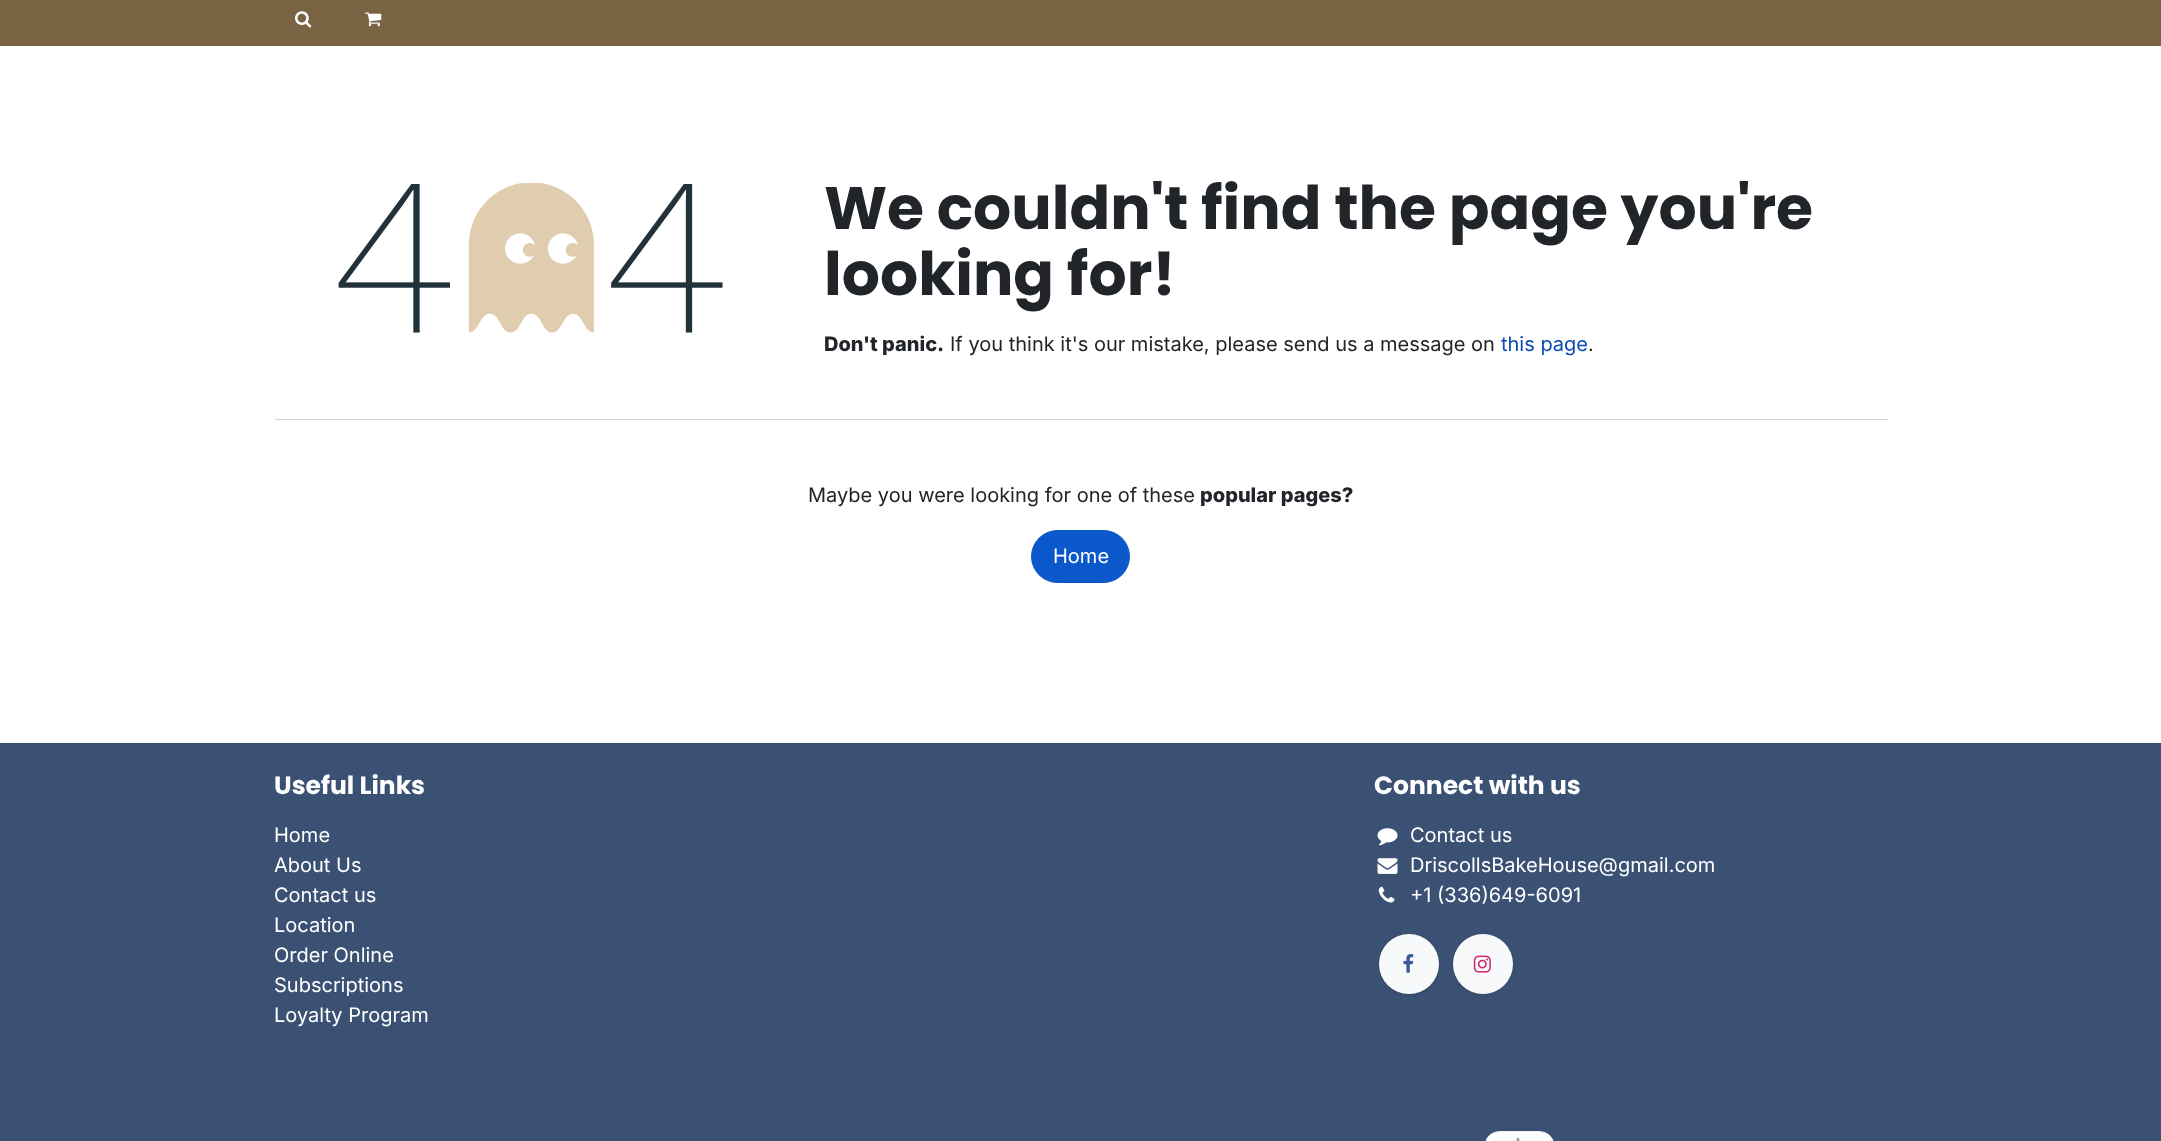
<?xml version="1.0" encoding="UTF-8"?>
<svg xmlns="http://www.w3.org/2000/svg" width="2161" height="1141">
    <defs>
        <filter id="blur1" x="-50%" y="-200%" width="200%" height="500%"><feGaussianBlur stdDeviation="2"/></filter>
    </defs>
    <rect width="100%" height="100%" fill="#FFFFFF"/>
    <rect x="0" y="0" width="2161" height="46" fill="#796342"/>
    <image x="295" y="11" width="17" height="17" href="img_01.png"/>
    <image x="365" y="12" width="17" height="15" href="img_02.png"/>
    <image x="338" y="183" width="385" height="150" href="img_03.png"/>
    <text font-family="Poppins" font-size="60" font-weight="700" fill="#212529">
        <tspan x="824" y="229">We couldn't find the page you're</tspan>
        <tspan x="824" y="295">looking for!</tspan>
    </text>
    <text x="824" y="351" font-family="Inter" font-size="20" font-weight="800" fill="#212529">Don't panic.</text>
    <text x="950" y="351" font-family="Inter" font-size="20" fill="#212529">If you think it's our mistake, please send us a message on</text>
    <text x="1501" y="351" font-family="Inter" font-size="20" fill="#094DB2">this page</text>
    <text x="1588" y="351" font-family="Inter" font-size="20" fill="#212529">.</text>
    <rect x="275" y="419" width="1613" height="1" fill="#CED4DA"/>
    <text x="808" y="502" font-family="Inter" font-size="20" fill="#212529">Maybe you were looking for one of these</text>
    <text x="1200" y="502" font-family="Inter" font-size="20" font-weight="800" fill="#212529">popular pages?</text>
    <rect x="1031.5" y="530.5" width="98" height="52" rx="26" fill="#0A58CA" stroke="#0A58CA"/>
    <text x="1053" y="563" font-family="Inter" font-size="20" fill="#FFFFFF">Home</text>
    <rect x="0" y="743" width="2161" height="398" fill="#3A5173"/>
    <text x="274" y="794" font-family="Poppins" font-size="25" font-weight="700" fill="#FFFFFF">Useful Links</text>
    <text font-family="Inter" font-size="20" fill="#FFFFFF">
        <tspan x="274" y="842">Home</tspan>
        <tspan x="274" y="872">About Us</tspan>
        <tspan x="274" y="902">Contact us</tspan>
        <tspan x="274" y="932">Location</tspan>
        <tspan x="274" y="962">Order Online</tspan>
        <tspan x="274" y="992">Subscriptions</tspan>
        <tspan x="274" y="1022">Loyalty Program</tspan>
    </text>
    <text x="1374" y="794" font-family="Poppins" font-size="25" font-weight="700" fill="#FFFFFF">Connect with us</text>
    <image x="1377" y="828" width="21" height="18" href="img_04.png"/>
    <text x="1410" y="842" font-family="Inter" font-size="20" fill="#FFFFFF">Contact us</text>
    <image x="1377" y="858" width="21" height="16" href="img_05.png"/>
    <text x="1410" y="872" font-family="Inter" font-size="20" fill="#FFFFFF">DriscollsBakeHouse@gmail.com</text>
    <image x="1378" y="886" width="17" height="17" href="img_06.png"/>
    <text x="1410" y="902" font-family="Inter" font-size="20" fill="#FFFFFF">+1 (336)649-6091</text>
    <rect x="1379" y="935" width="60" height="60" rx="30" fill="#000000" fill-opacity="0.1" filter="url(#blur1)"/>
    <circle cx="1409" cy="964" r="30" fill="#F8F9FA"/>
    <image x="1403" y="954" width="11" height="19" href="img_07.png"/>
    <rect x="1453" y="935" width="60" height="60" rx="30" fill="#000000" fill-opacity="0.1" filter="url(#blur1)"/>
    <circle cx="1483" cy="964" r="30" fill="#F8F9FA"/>
    <image x="1473" y="955" width="18" height="18" href="img_08.png"/>
    <rect x="1485.5" y="1131.5" width="68" height="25" rx="14.5" fill="#FEFEFE" stroke="#F0F2F5"/>
    <image x="1501" y="1137" width="19" height="4" href="img_09.png"/>
</svg>
